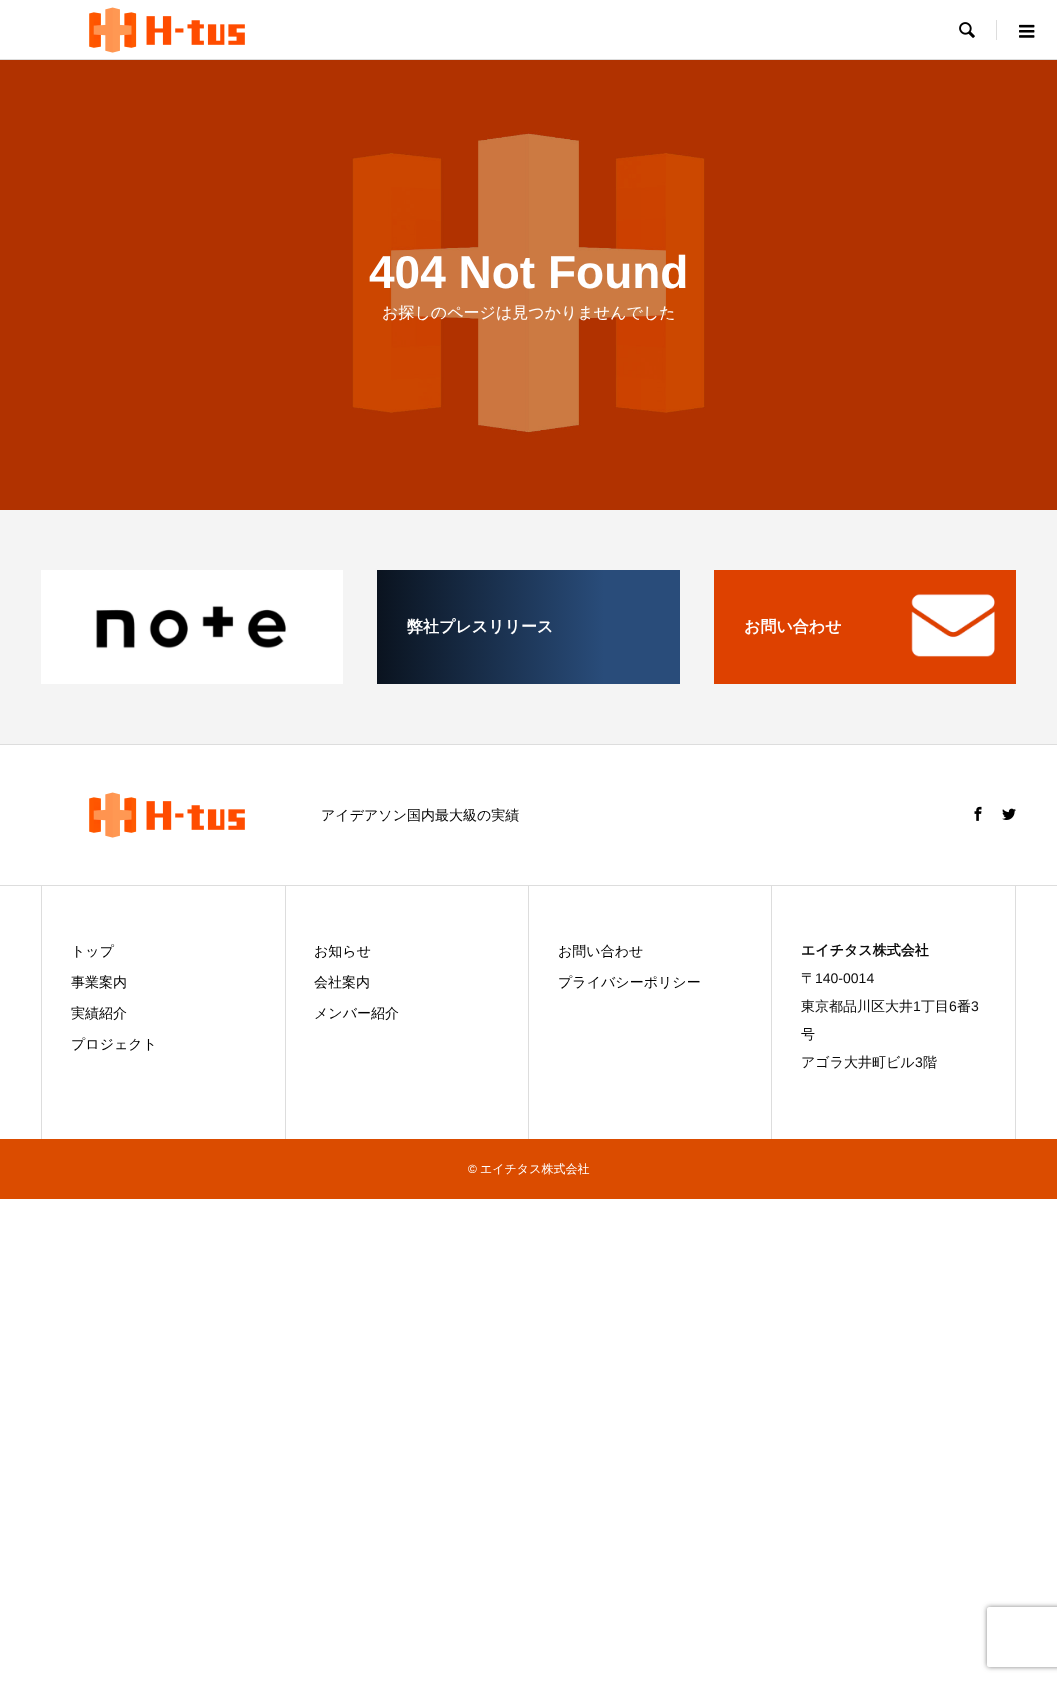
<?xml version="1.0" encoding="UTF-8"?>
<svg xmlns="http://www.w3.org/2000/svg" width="1057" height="1681">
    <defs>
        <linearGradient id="g1" gradientUnits="userSpaceOnUse" x1="377" y1="627" x2="680" y2="627"><stop offset="0" stop-color="#0A131F"/><stop offset="0.75" stop-color="#294C7A"/></linearGradient>
        <clipPath id="clip1"><path d="M 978 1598 H 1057 V 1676 H 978 Z M 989 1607 H 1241 C 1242 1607 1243 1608 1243 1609 V 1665 C 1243 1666 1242 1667 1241 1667 H 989 C 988 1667 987 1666 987 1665 V 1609 C 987 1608 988 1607 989 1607 Z" clip-rule="evenodd"/></clipPath>
        <filter id="blur1" x="-50%" y="-200%" width="200%" height="500%"><feGaussianBlur stdDeviation="2.5"/></filter>
    </defs>
    <rect width="100%" height="100%" fill="#FFFFFF"/>
    <rect x="0" y="59" width="1057" height="1" fill="#DDDDDD"/>
    <image x="89" y="7" width="156" height="46" href="img_01.png"/>
    <image x="959" y="22" width="16" height="16" href="img_02.png"/>
    <rect x="996" y="20" width="1" height="20" fill="#DDDDDD"/>
    <image x="1019" y="24" width="16" height="14" href="img_03.png"/>
    <image x="0" y="60" width="1057" height="450" href="img_04.png"/>
    <text x="369" y="288" font-family="Liberation Sans" font-size="46" font-weight="700" fill="#FFFFFF">404 Not Found</text>
    <text x="382" y="318" font-family="WenQuanYi Zen Hei" font-size="16" font-weight="500" fill="#FFFFFF">お探しのページは見つかりませんでした</text>
    <rect x="0" y="510" width="1057" height="234" fill="#F4F4F4"/>
    <rect x="0" y="744" width="1057" height="1" fill="#DDDDDD"/>
    <image x="41" y="570" width="302" height="114" href="img_05.png"/>
    <rect x="377" y="570" width="303" height="114" fill="url(#g1)"/>
    <text x="407" y="632" font-family="WenQuanYi Zen Hei" font-size="16" font-weight="700" fill="#FFFFFF">弊社プレスリリース</text>
    <image x="714" y="570" width="302" height="114" href="img_06.png"/>
    <text x="744" y="632" font-family="WenQuanYi Zen Hei" font-size="16" font-weight="700" fill="#FFFFFF">お問い合わせ</text>
    <rect x="0" y="885" width="1057" height="1" fill="#DDDDDD"/>
    <image x="89" y="792" width="156" height="46" href="img_01.png"/>
    <text x="321" y="820" font-family="WenQuanYi Zen Hei" font-size="14" font-weight="500" fill="#000000">アイデアソン国内最大級の実績</text>
    <image x="974" y="806" width="8" height="15" href="img_07.png"/>
    <image x="1002" y="808" width="14" height="12" href="img_08.png"/>
    <rect x="41" y="886" width="1" height="253" fill="#DDDDDD"/>
    <rect x="285" y="886" width="1" height="253" fill="#DDDDDD"/>
    <text x="71" y="956" font-family="WenQuanYi Zen Hei" font-size="14" font-weight="500" fill="#000000">トップ</text>
    <text x="71" y="987" font-family="WenQuanYi Zen Hei" font-size="14" font-weight="500" fill="#000000">事業案内</text>
    <text x="71" y="1018" font-family="WenQuanYi Zen Hei" font-size="14" font-weight="500" fill="#000000">実績紹介</text>
    <text x="71" y="1049" font-family="WenQuanYi Zen Hei" font-size="14" font-weight="500" fill="#000000">プロジェクト</text>
    <rect x="528" y="886" width="1" height="253" fill="#DDDDDD"/>
    <text x="314" y="956" font-family="WenQuanYi Zen Hei" font-size="14" font-weight="500" fill="#000000">お知らせ</text>
    <text x="314" y="987" font-family="WenQuanYi Zen Hei" font-size="14" font-weight="500" fill="#000000">会社案内</text>
    <text x="314" y="1018" font-family="WenQuanYi Zen Hei" font-size="14" font-weight="500" fill="#000000">メンバー紹介</text>
    <rect x="771" y="886" width="1" height="253" fill="#DDDDDD"/>
    <text x="558" y="956" font-family="WenQuanYi Zen Hei" font-size="14" font-weight="500" fill="#000000">お問い合わせ</text>
    <text x="558" y="987" font-family="WenQuanYi Zen Hei" font-size="14" font-weight="500" fill="#000000">プライバシーポリシー</text>
    <rect x="1015" y="886" width="1" height="253" fill="#DDDDDD"/>
    <text x="801" y="955" font-family="WenQuanYi Zen Hei" font-size="14" font-weight="700" fill="#0A0A0A">エイチタス株式会社</text>
    <text x="801" y="983" font-family="WenQuanYi Zen Hei" font-size="14" font-weight="500" fill="#0A0A0A">〒</text>
    <text x="815" y="983" font-family="Liberation Sans" font-size="14" fill="#0A0A0A">140-0014</text>
    <text x="801" y="1011" font-family="WenQuanYi Zen Hei" font-size="14" font-weight="500" fill="#0A0A0A">東京都品川区大井</text>
    <text x="913" y="1011" font-family="Liberation Sans" font-size="14" fill="#0A0A0A">1</text>
    <text x="921" y="1011" font-family="WenQuanYi Zen Hei" font-size="14" font-weight="500" fill="#0A0A0A">丁目</text>
    <text x="949" y="1011" font-family="Liberation Sans" font-size="14" fill="#0A0A0A">6</text>
    <text x="957" y="1011" font-family="WenQuanYi Zen Hei" font-size="14" font-weight="500" fill="#0A0A0A">番</text>
    <text x="971" y="1011" font-family="Liberation Sans" font-size="14" fill="#0A0A0A">3</text>
    <text x="801" y="1039" font-family="WenQuanYi Zen Hei" font-size="14" font-weight="500" fill="#0A0A0A">号</text>
    <text x="801" y="1067" font-family="WenQuanYi Zen Hei" font-size="14" font-weight="500" fill="#0A0A0A">アゴラ大井町ビル</text>
    <text x="915" y="1067" font-family="Liberation Sans" font-size="14" fill="#0A0A0A">3</text>
    <text x="923" y="1067" font-family="WenQuanYi Zen Hei" font-size="14" font-weight="500" fill="#0A0A0A">階</text>
    <rect x="0" y="1139" width="1057" height="60" fill="#DB4C00"/>
    <text x="468" y="1173" font-family="Liberation Sans" font-size="12" fill="#FFFFFF">©</text>
    <text x="480" y="1173" font-family="WenQuanYi Zen Hei" font-size="12" font-weight="500" fill="#FFFFFF">エイチタス株式会社</text>
    <g clip-path="url(#clip1)">
        <rect x="987" y="1607" width="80" height="60" rx="2" fill="#808080" filter="url(#blur1)"/>
    </g>
</svg>
